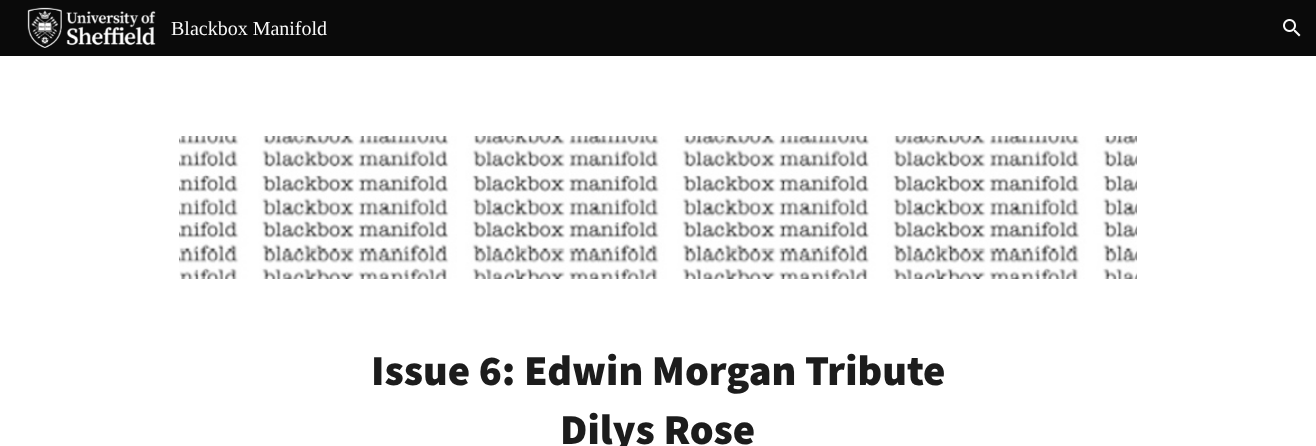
<?xml version="1.0" encoding="UTF-8"?>
<svg xmlns="http://www.w3.org/2000/svg" width="1316" height="446">
    <rect width="100%" height="100%" fill="#FFFFFF"/>
    <rect x="0" y="0" width="1316" height="56" fill="#0A0A0A"/>
    <image x="27" y="7" width="129" height="41" href="img_01.png"/>
    <text x="171" y="35" font-family="Liberation Serif" font-size="20" fill="#F9F9F9">Blackbox Manifold</text>
    <image x="1283" y="19" width="18" height="18" href="img_02.png"/>
    <image x="179" y="136" width="958" height="143" href="img_03.png"/>
    <text x="371" y="385" font-family="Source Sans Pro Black" font-size="42.7" font-weight="900" fill="#1C1C1C">Issue 6: Edwin Morgan Tribute</text>
    <text x="560" y="444" font-family="Source Sans Pro Black" font-size="42.7" font-weight="900" fill="#1C1C1C">Dilys Rose</text>
</svg>
